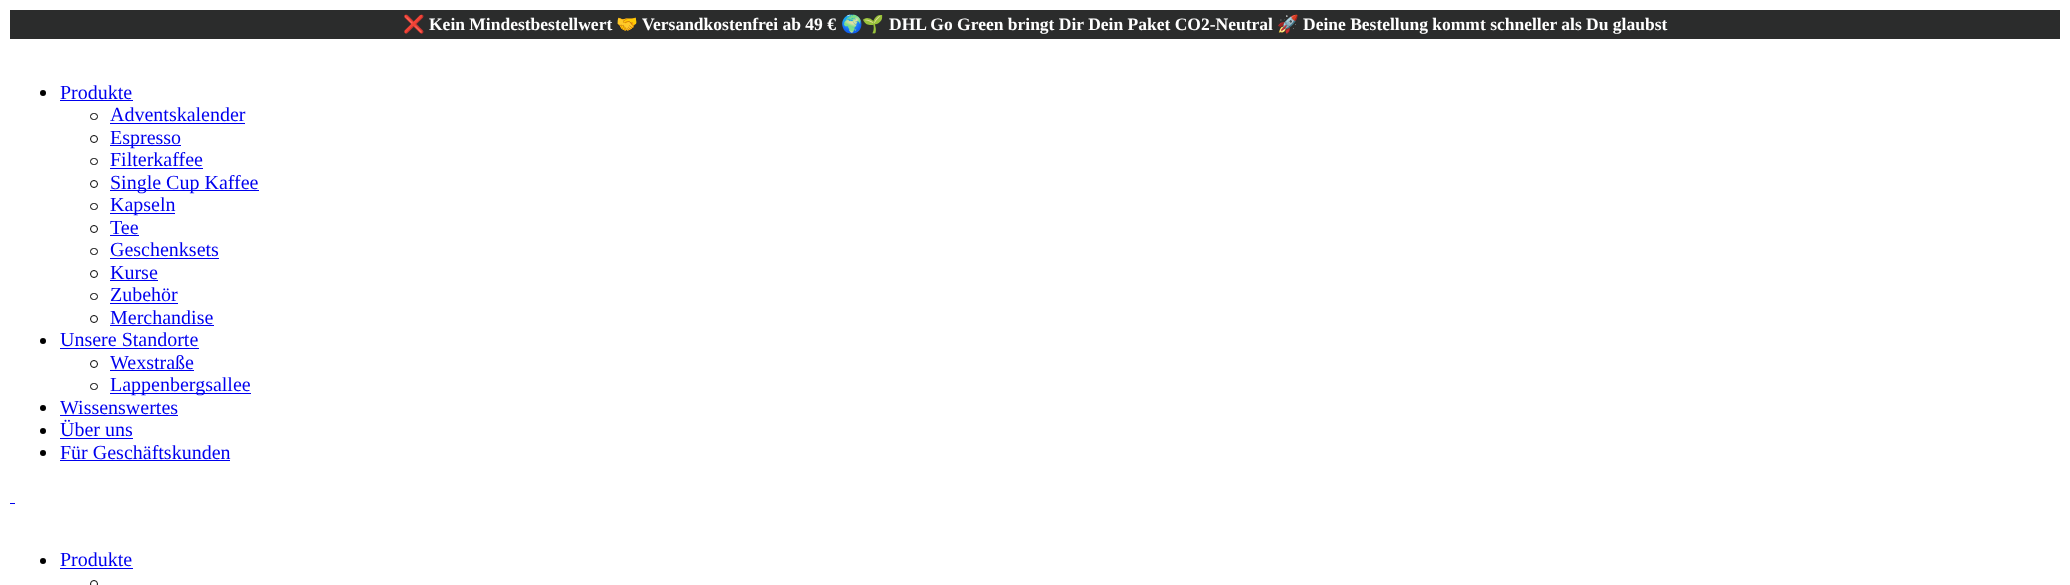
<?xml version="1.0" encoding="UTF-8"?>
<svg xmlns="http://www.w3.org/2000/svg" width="2070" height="585">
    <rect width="100%" height="100%" fill="#FFFFFF"/>
    <rect x="10" y="10" width="2050" height="29" fill="#2B2C2C"/>
    <text x="403" y="30" font-family="Noto Color Emoji" font-size="17.5" font-weight="700" fill="#FFFFFF">❌</text>
    <text x="429" y="30" font-family="Liberation Serif" font-size="17.5" font-weight="700" fill="#FFFFFF">Kein Mindestbestellwert</text>
    <text x="616" y="30" font-family="Noto Color Emoji" font-size="17.5" font-weight="700" fill="#FFFFFF">🤝</text>
    <text x="642" y="30" font-family="Liberation Serif" font-size="17.5" font-weight="700" fill="#FFFFFF">Versandkostenfrei ab 49 €</text>
    <text x="841" y="30" font-family="Noto Color Emoji" font-size="17.5" font-weight="700" fill="#FFFFFF">🌍🌱</text>
    <text x="889" y="30" font-family="Liberation Serif" font-size="17.5" font-weight="700" fill="#FFFFFF">DHL Go Green bringt Dir Dein Paket CO2-Neutral</text>
    <text x="1277" y="30" font-family="Noto Color Emoji" font-size="17.5" font-weight="700" fill="#FFFFFF">🚀</text>
    <text x="1303" y="30" font-family="Liberation Serif" font-size="17.5" font-weight="700" fill="#FFFFFF">Deine Bestellung kommt schneller als Du glaubst</text>
    <circle cx="43" cy="93" r="3" fill="#000000"/>
    <text x="60" y="99" font-family="Liberation Serif" font-size="20" fill="#0000EE">Produkte</text>
    <rect x="60" y="100" width="73" height="1" fill="#0000EE"/>
    <rect x="90.5" y="113.5" width="7" height="6" rx="3" fill="none" stroke="#000000"/>
    <text x="110" y="121" font-family="Liberation Serif" font-size="20" fill="#0000EE">Adventskalender</text>
    <rect x="110" y="123" width="135" height="1" fill="#0000EE"/>
    <circle cx="94" cy="139" r="3.5" fill="none" stroke="#000000"/>
    <rect x="110" y="145" width="71" height="1" fill="#0000EE"/>
    <text x="110" y="144" font-family="Liberation Serif" font-size="20" fill="#0000EE">Espresso</text>
    <rect x="90.5" y="158.5" width="7" height="6" rx="3" fill="none" stroke="#000000"/>
    <text x="110" y="166" font-family="Liberation Serif" font-size="20" fill="#0000EE">Filterkaffee</text>
    <rect x="110" y="168" width="93" height="1" fill="#0000EE"/>
    <circle cx="94" cy="184" r="3.5" fill="none" stroke="#000000"/>
    <rect x="110" y="190" width="149" height="1" fill="#0000EE"/>
    <text x="110" y="189" font-family="Liberation Serif" font-size="20" fill="#0000EE">Single Cup Kaffee</text>
    <rect x="90.5" y="203.5" width="7" height="6" rx="3" fill="none" stroke="#000000"/>
    <rect x="110" y="213" width="65" height="1" fill="#0000EE"/>
    <text x="110" y="211" font-family="Liberation Serif" font-size="20" fill="#0000EE">Kapseln</text>
    <circle cx="94" cy="229" r="3.5" fill="none" stroke="#000000"/>
    <text x="110" y="234" font-family="Liberation Serif" font-size="20" fill="#0000EE">Tee</text>
    <rect x="110" y="235" width="29" height="1" fill="#0000EE"/>
    <rect x="90.5" y="248.5" width="7" height="6" rx="3" fill="none" stroke="#000000"/>
    <text x="110" y="256" font-family="Liberation Serif" font-size="20" fill="#0000EE">Geschenksets</text>
    <rect x="110" y="258" width="109" height="1" fill="#0000EE"/>
    <circle cx="94" cy="274" r="3.5" fill="none" stroke="#000000"/>
    <text x="110" y="279" font-family="Liberation Serif" font-size="20" fill="#0000EE">Kurse</text>
    <rect x="110" y="280" width="48" height="1" fill="#0000EE"/>
    <rect x="90.5" y="293.5" width="7" height="6" rx="3" fill="none" stroke="#000000"/>
    <text x="110" y="301" font-family="Liberation Serif" font-size="20" fill="#0000EE">Zubehör</text>
    <rect x="110" y="303" width="68" height="1" fill="#0000EE"/>
    <circle cx="94" cy="319" r="3.5" fill="none" stroke="#000000"/>
    <text x="110" y="324" font-family="Liberation Serif" font-size="20" fill="#0000EE">Merchandise</text>
    <rect x="110" y="325" width="104" height="1" fill="#0000EE"/>
    <circle cx="43" cy="341" r="3" fill="#000000"/>
    <text x="60" y="346" font-family="Liberation Serif" font-size="20" fill="#0000EE">Unsere Standorte</text>
    <rect x="60" y="348" width="139" height="1" fill="#0000EE"/>
    <circle cx="94" cy="364" r="3.5" fill="none" stroke="#000000"/>
    <text x="110" y="369" font-family="Liberation Serif" font-size="20" fill="#0000EE">Wexstraße</text>
    <rect x="110" y="370" width="84" height="1" fill="#0000EE"/>
    <rect x="90.5" y="383.5" width="7" height="6" rx="3" fill="none" stroke="#000000"/>
    <rect x="110" y="393" width="141" height="1" fill="#0000EE"/>
    <text x="110" y="391" font-family="Liberation Serif" font-size="20" fill="#0000EE">Lappenbergsallee</text>
    <circle cx="43" cy="408" r="3" fill="#000000"/>
    <text x="60" y="414" font-family="Liberation Serif" font-size="20" fill="#0000EE">Wissenswertes</text>
    <rect x="60" y="415" width="118" height="1" fill="#0000EE"/>
    <circle cx="43" cy="431" r="3" fill="#000000"/>
    <text x="60" y="436" font-family="Liberation Serif" font-size="20" fill="#0000EE">Über uns</text>
    <rect x="60" y="438" width="73" height="1" fill="#0000EE"/>
    <circle cx="43" cy="453" r="3" fill="#000000"/>
    <text x="60" y="459" font-family="Liberation Serif" font-size="20" fill="#0000EE">Für Geschäftskunden</text>
    <rect x="60" y="460" width="170" height="1" fill="#0000EE"/>
    <rect x="10" y="503" width="5" height="1" fill="#0000EE"/>
    <circle cx="43" cy="561" r="3" fill="#000000"/>
    <text x="60" y="566" font-family="Liberation Serif" font-size="20" fill="#0000EE">Produkte</text>
    <rect x="60" y="568" width="73" height="1" fill="#0000EE"/>
    <circle cx="94" cy="584" r="3.5" fill="none" stroke="#000000"/>
</svg>
